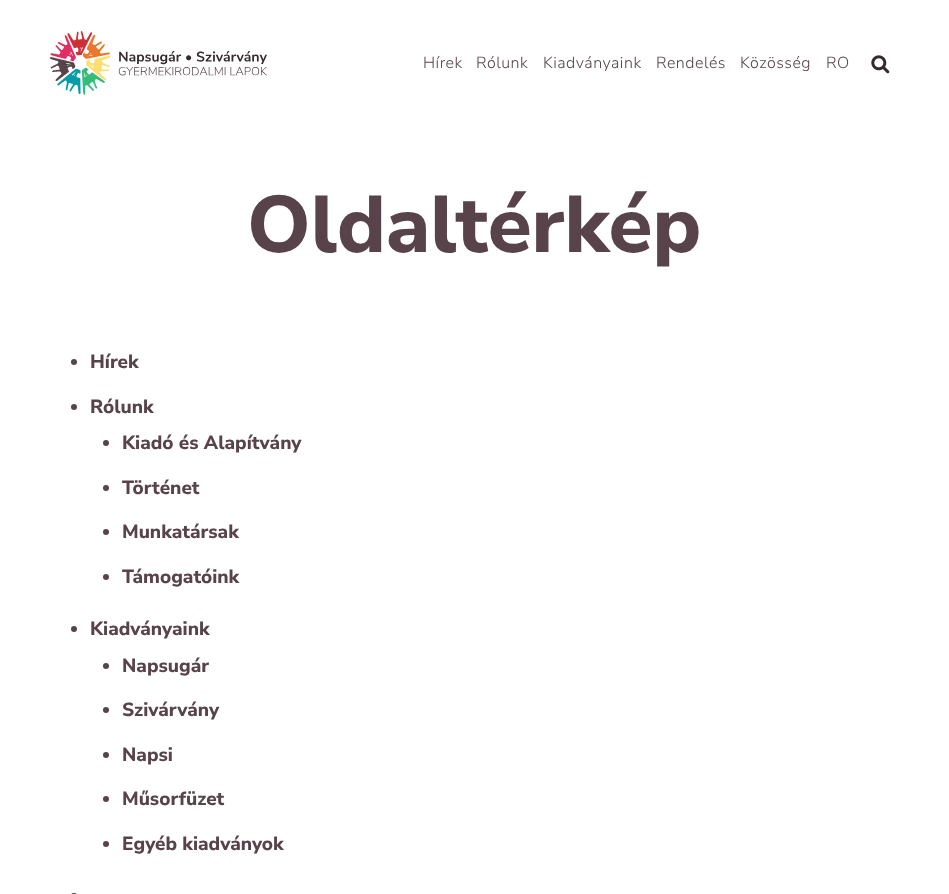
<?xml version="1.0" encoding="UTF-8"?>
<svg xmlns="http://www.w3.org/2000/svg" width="949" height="894">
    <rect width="100%" height="100%" fill="#FFFFFF"/>
    <image x="49" y="31" width="218" height="64" href="img_01.png"/>
    <text x="423" y="68" font-family="Nunito Sans" font-size="16" font-weight="300" letter-spacing="0.5" fill="#58434A">Hírek</text>
    <text x="476" y="68" font-family="Nunito Sans" font-size="16" font-weight="300" letter-spacing="0.5" fill="#58434A">Rólunk</text>
    <text x="543" y="68" font-family="Nunito Sans" font-size="16" font-weight="300" letter-spacing="0.5" fill="#58434A">Kiadványaink</text>
    <text x="656" y="68" font-family="Nunito Sans" font-size="16" font-weight="300" letter-spacing="0.5" fill="#58434A">Rendelés</text>
    <text x="740" y="68" font-family="Nunito Sans" font-size="16" font-weight="300" letter-spacing="0.5" fill="#58434A">Közösség</text>
    <text x="826" y="68" font-family="Nunito Sans" font-size="16" font-weight="300" letter-spacing="0.5" fill="#58434A">RO</text>
    <image x="871" y="55" width="19" height="19" href="img_02.png"/>
    <text x="247" y="252" font-family="Nunito Sans" font-size="80" font-weight="800" fill="#58434A">Oldaltérkép</text>
    <circle cx="74" cy="362" r="3" fill="#58434A"/>
    <text x="90" y="368" font-family="Nunito Sans" font-size="19" font-weight="800" fill="#58434A">Hírek</text>
    <circle cx="74" cy="407" r="3" fill="#58434A"/>
    <text x="90" y="413" font-family="Nunito Sans" font-size="19" font-weight="800" fill="#58434A">Rólunk</text>
    <circle cx="106" cy="443" r="3" fill="#58434A"/>
    <text x="122" y="449" font-family="Nunito Sans" font-size="19" font-weight="800" fill="#58434A">Kiadó és Alapítvány</text>
    <circle cx="106" cy="488" r="3" fill="#58434A"/>
    <text x="122" y="494" font-family="Nunito Sans" font-size="19" font-weight="800" fill="#58434A">Történet</text>
    <circle cx="106" cy="532" r="3" fill="#58434A"/>
    <text x="122" y="538" font-family="Nunito Sans" font-size="19" font-weight="800" fill="#58434A">Munkatársak</text>
    <circle cx="106" cy="577" r="3" fill="#58434A"/>
    <text x="122" y="583" font-family="Nunito Sans" font-size="19" font-weight="800" fill="#58434A">Támogatóink</text>
    <circle cx="74" cy="629" r="3" fill="#58434A"/>
    <text x="90" y="635" font-family="Nunito Sans" font-size="19" font-weight="800" fill="#58434A">Kiadványaink</text>
    <circle cx="106" cy="666" r="3" fill="#58434A"/>
    <text x="122" y="672" font-family="Nunito Sans" font-size="19" font-weight="800" fill="#58434A">Napsugár</text>
    <circle cx="106" cy="710" r="3" fill="#58434A"/>
    <text x="122" y="716" font-family="Nunito Sans" font-size="19" font-weight="800" fill="#58434A">Szivárvány</text>
    <circle cx="106" cy="755" r="3" fill="#58434A"/>
    <text x="122" y="761" font-family="Nunito Sans" font-size="19" font-weight="800" fill="#58434A">Napsi</text>
    <circle cx="106" cy="799" r="3" fill="#58434A"/>
    <text x="122" y="805" font-family="Nunito Sans" font-size="19" font-weight="800" fill="#58434A">Műsorfüzet</text>
    <circle cx="106" cy="844" r="3" fill="#58434A"/>
    <text x="122" y="850" font-family="Nunito Sans" font-size="19" font-weight="800" fill="#58434A">Egyéb kiadványok</text>
    <rect x="71" y="893" width="6" height="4" rx="3" fill="#58434A"/>
</svg>
